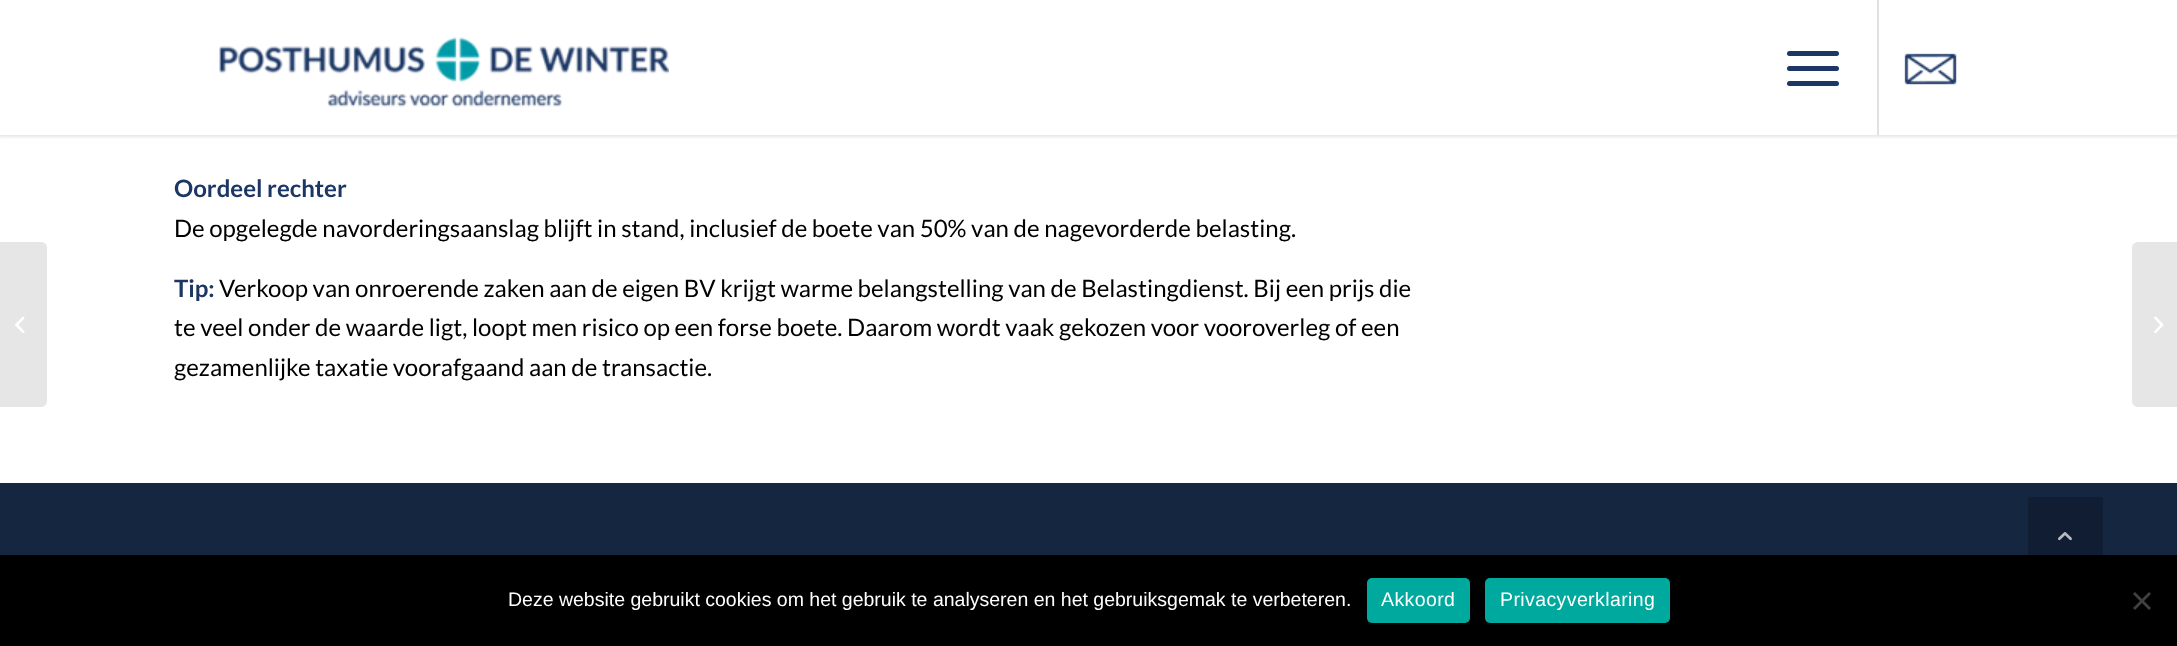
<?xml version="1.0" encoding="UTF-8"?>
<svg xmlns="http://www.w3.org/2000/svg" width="2177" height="646">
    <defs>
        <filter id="blur1" x="-50%" y="-200%" width="200%" height="500%"><feGaussianBlur stdDeviation="1.5"/></filter>
    </defs>
    <rect width="100%" height="100%" fill="#FFFFFF"/>
    <rect x="-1" y="-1" width="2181" height="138" fill="#000000" fill-opacity="0.1" filter="url(#blur1)"/>
    <rect x="0" y="0" width="2177" height="135" fill="#FFFFFF"/>
    <image x="219" y="37" width="450" height="70" href="img_01.png"/>
    <rect x="1877" y="0" width="2" height="135" fill="#E1E1E1"/>
    <rect x="1787" y="66" width="52" height="5" rx="2.5" fill="#1C3765"/>
    <rect x="1787" y="51" width="52" height="5" rx="2.5" fill="#1C3765"/>
    <rect x="1787" y="81" width="52" height="5" rx="2.5" fill="#1C3765"/>
    <image x="1904" y="53" width="53" height="32" href="img_02.png"/>
    <path d="M 0 242 H 41 C 44.5 242 47 244.5 47 248 V 401 C 47 404.5 44.5 407 41 407 H 0 Z" fill="#E6E6E6"/>
    <image x="15" y="316" width="10" height="17" href="img_03.png"/>
    <text x="174" y="197" font-family="Lato" font-size="24" font-weight="700" fill="#1C3765">Oordeel rechter</text>
    <text x="174" y="237" font-family="Lato" font-size="24" fill="#000000">De opgelegde navorderingsaanslag blijft in stand, inclusief de boete van 50% van de nagevorderde belasting.</text>
    <text x="174" y="297" font-family="Lato" font-size="24" font-weight="700" fill="#1C3765">Tip:</text>
    <text x="219" y="297" font-family="Lato" font-size="24" fill="#000000">Verkoop van onroerende zaken aan de eigen BV krijgt warme belangstelling van de Belastingdienst. Bij een prijs die</text>
    <text font-family="Lato" font-size="24" fill="#000000">
        <tspan x="174" y="336">te veel onder de waarde ligt, loopt men risico op een forse boete. Daarom wordt vaak gekozen voor vooroverleg of een</tspan>
        <tspan x="174" y="376">gezamenlijke taxatie voorafgaand aan de transactie.</tspan>
    </text>
    <rect x="0" y="483" width="2177" height="72" fill="#152641"/>
    <path d="M 2138 242 H 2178 V 407 H 2138 C 2134.5 407 2132 404.5 2132 401 V 248 C 2132 244.5 2134.5 242 2138 242 Z" fill="#E6E6E6"/>
    <image x="2154" y="316" width="10" height="17" href="img_04.png"/>
    <rect x="2029" y="498" width="73" height="73" rx="2" fill="#101D32" stroke="#101D32" stroke-width="2"/>
    <image x="2058" y="532" width="14" height="9" href="img_05.png"/>
    <rect x="0" y="555" width="2177" height="91" fill="#000000"/>
    <text x="508" y="606" font-family="Liberation Sans" font-size="19.5" fill="#FFFFFF">Deze website gebruikt cookies om het gebruik te analyseren en het gebruiksgemak te verbeteren.</text>
    <rect x="1367" y="578" width="103" height="45" rx="5" fill="#00A99D"/>
    <text x="1381" y="606" font-family="Liberation Sans" font-size="19.5" letter-spacing="0.4" fill="#FFFFFF">Akkoord</text>
    <rect x="1485" y="578" width="185" height="45" rx="5" fill="#00A99D"/>
    <text x="1500" y="606" font-family="Liberation Sans" font-size="19.5" letter-spacing="0.4" fill="#FFFFFF">Privacyverklaring</text>
    <path d="M 2149 592 L 2151 594 L 2135 610 L 2133 608 Z" fill="#404040"/>
    <path d="M 2133 594 L 2135 592 L 2151 608 L 2149 610 Z" fill="#404040"/>
</svg>
